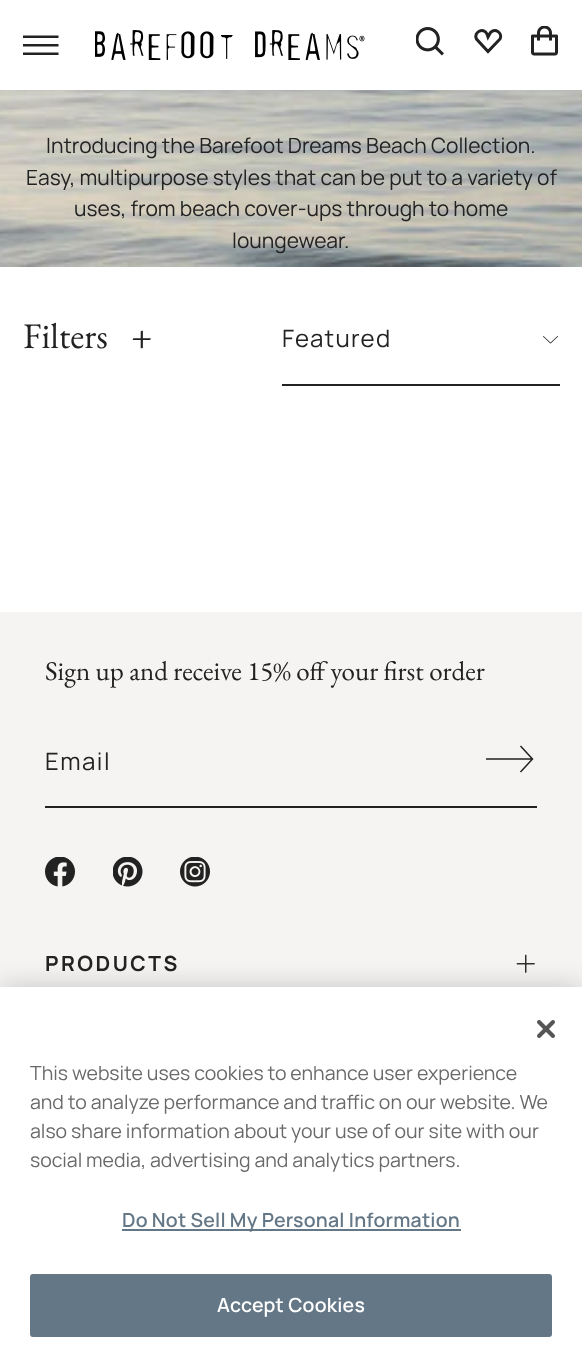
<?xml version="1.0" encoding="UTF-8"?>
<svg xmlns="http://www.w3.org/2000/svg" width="582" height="1360">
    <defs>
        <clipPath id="clip1"><rect x="23" y="27" width="36" height="36"/></clipPath>
        <filter id="blur1" x="-50%" y="-200%" width="200%" height="500%"><feGaussianBlur stdDeviation="13.5"/></filter>
    </defs>
    <rect width="100%" height="100%" fill="#FFFFFF"/>
    <g clip-path="url(#clip1)">
        <path d="M 58.5 38 H 22.5 V 35.5 H 58.5 Z M 58.5 46.5 H 22.5 V 44 H 58.5 Z M 58.5 55 H 22.5 V 52.5 H 58.5 Z" fill="#222222" fill-rule="evenodd"/>
    </g>
    <image x="95" y="30" width="270" height="30" href="img_01.png"/>
    <image x="416" y="27" width="28" height="29" href="img_02.png"/>
    <path d="M 487 34 L 488 37 L 490.5 32.5 C 495 27.5 503 33 500 39 L 488 51.5 L 476.5 39 C 473 32.5 483.5 26.5 487 34 Z M 489 52.5 H 489 Z" fill="none" stroke="#222222" stroke-width="3"/>
    <image x="531" y="26" width="27" height="30" href="img_03.png"/>
    <image x="0" y="90" width="582" height="177" href="img_04.png"/>
    <text x="46" y="153" font-family="Manrope" font-size="21" font-weight="200" fill="#222222">Introducing the Barefoot Dreams Beach Collection.</text>
    <text x="26" y="185" font-family="Manrope" font-size="21" font-weight="200" fill="#222222">Easy, multipurpose styles that can be put to a variety of</text>
    <text x="74" y="216" font-family="Manrope" font-size="21" font-weight="200" fill="#222222">uses, from beach cover-ups through to home</text>
    <text x="232" y="248" font-family="Manrope" font-size="21" font-weight="200" fill="#222222">loungewear.</text>
    <text x="23" y="348" font-family="EB Garamond" font-size="36" fill="#222222">Filters</text>
    <text x="131" y="348" font-family="EB Garamond" font-size="36" fill="#222222">+</text>
    <rect x="282" y="384" width="278" height="2" fill="#222222"/>
    <text x="282" y="347" font-family="Manrope" font-size="24" font-weight="200" letter-spacing="1.25" fill="#222222">Featured</text>
    <image x="543" y="336" width="15" height="8" href="img_05.png"/>
    <rect x="0" y="612" width="582" height="375" fill="#F6F4F2"/>
    <text x="45" y="680" font-family="EB Garamond" font-size="27" fill="#222222">Sign up and receive 15% off your first order</text>
    <rect x="45" y="806" width="492" height="2" fill="#222222"/>
    <text x="45" y="770" font-family="Manrope" font-size="24" font-weight="200" letter-spacing="1.5" fill="#222222">Email</text>
    <path d="M 520.5 772 L 532.5 759 L 520.5 746 M 532.5 759 H 486" fill="none" stroke="#222222" stroke-width="1.5"/>
    <image x="45" y="857" width="30" height="30" href="img_06.png"/>
    <image x="113" y="857" width="30" height="30" href="img_07.png"/>
    <image x="180" y="857" width="30" height="30" href="img_08.png"/>
    <text x="45" y="971" font-family="'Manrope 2'" font-size="21" font-weight="200" letter-spacing="2.5" fill="#222222">PRODUCTS</text>
    <image x="516" y="954" width="19" height="19" href="img_09.png"/>
    <rect x="0" y="987" width="582" height="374" fill="#000000" fill-opacity="0.2" filter="url(#blur1)"/>
    <rect x="0" y="987" width="582" height="373" fill="#FFFFFF"/>
    <image x="537" y="1020" width="18" height="18" href="img_10.png"/>
    <text font-family="Manrope" font-size="19.5" font-weight="200" fill="#696969">
        <tspan x="30" y="1080">This website uses cookies to enhance user experience</tspan>
        <tspan x="30" y="1109">and to analyze performance and traffic on our website. We</tspan>
        <tspan x="30" y="1138">also share information about your use of our site with our</tspan>
        <tspan x="30" y="1167">social media, advertising and analytics partners.</tspan>
    </text>
    <rect x="122" y="1229" width="339" height="2" fill="#647787"/>
    <text x="122" y="1227" font-family="Manrope" font-size="19.5" font-weight="600" letter-spacing="0.2" fill="#647787">Do Not Sell My Personal Information</text>
    <rect x="31" y="1275" width="520" height="61" rx="2" fill="#647787" stroke="#647787" stroke-width="2"/>
    <text x="217" y="1312" font-family="Manrope" font-size="19.5" font-weight="600" letter-spacing="0.2" fill="#FFFFFF">Accept Cookies</text>
</svg>
